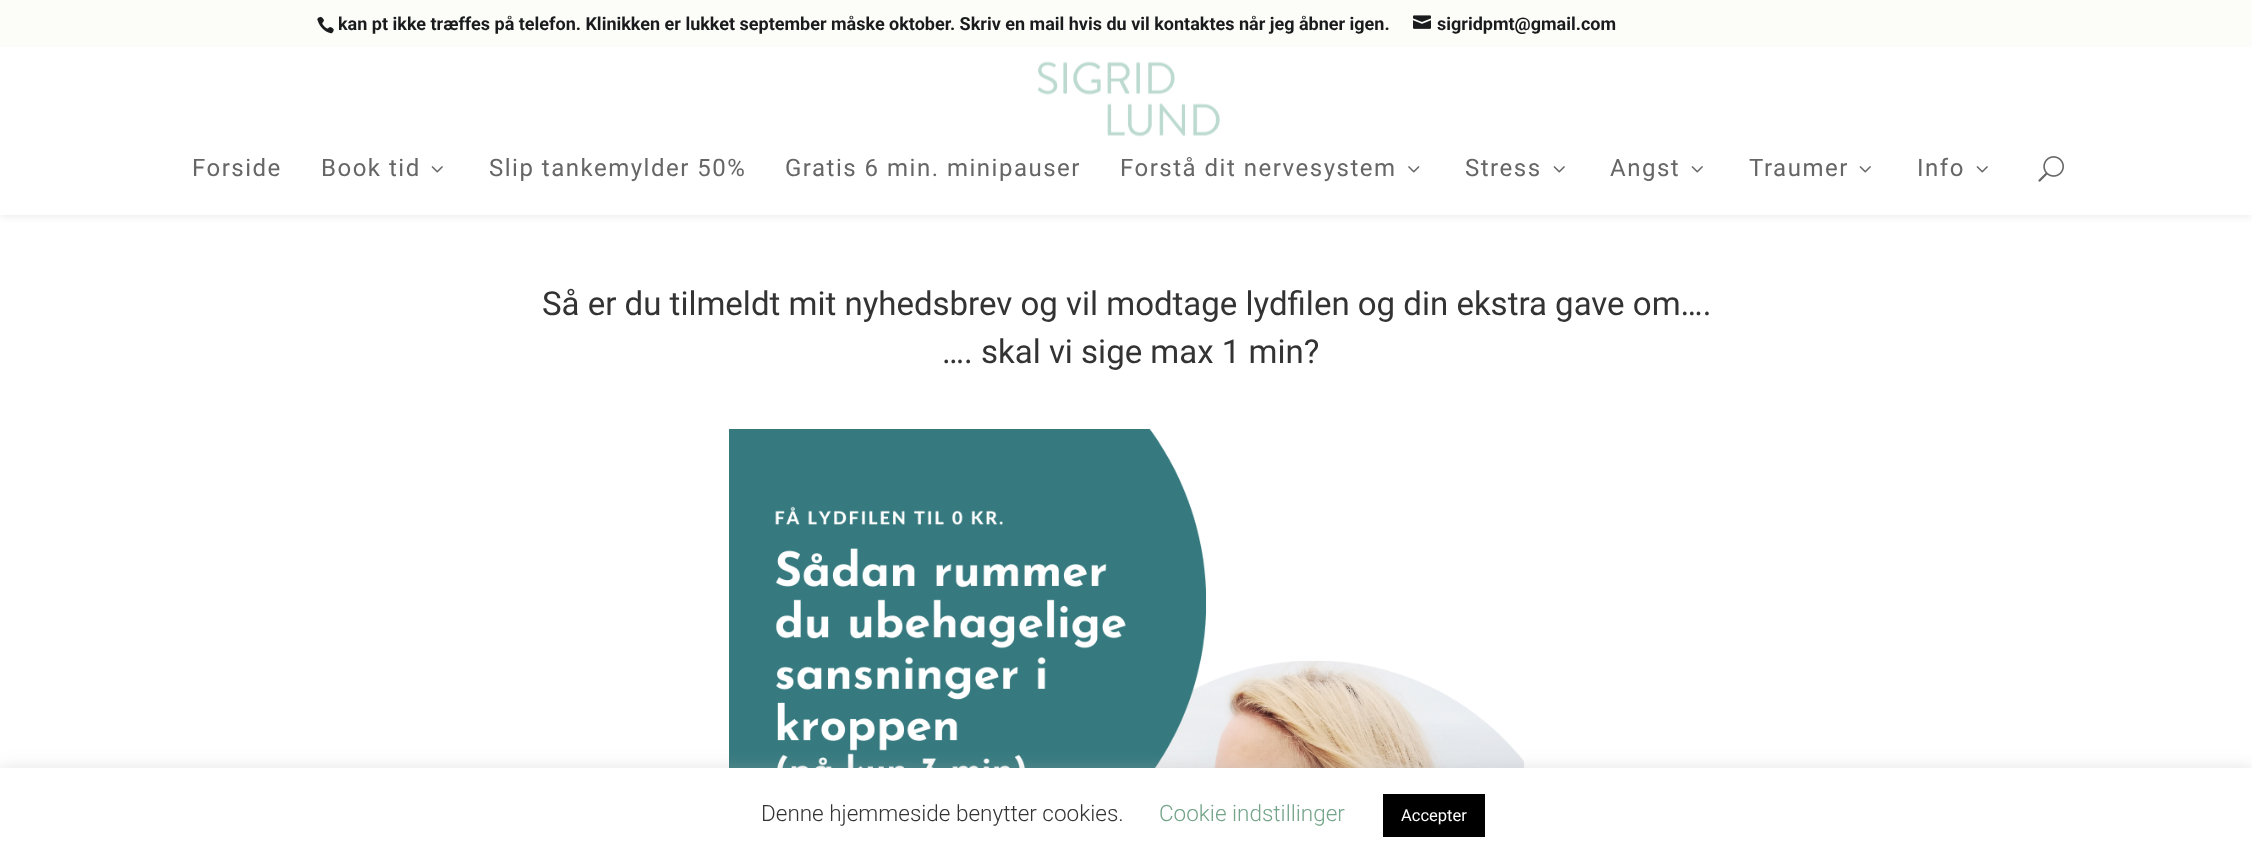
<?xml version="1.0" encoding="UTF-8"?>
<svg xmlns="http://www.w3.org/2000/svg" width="2252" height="862">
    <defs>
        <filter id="blur1" x="-50%" y="-200%" width="200%" height="500%"><feGaussianBlur stdDeviation="5"/></filter>
        <filter id="blur2" x="-50%" y="-200%" width="200%" height="500%"><feGaussianBlur stdDeviation="7.5"/></filter>
    </defs>
    <rect width="100%" height="100%" fill="#FFFFFF"/>
    <rect x="0" y="47" width="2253" height="168" fill="#000000" fill-opacity="0.1" filter="url(#blur1)"/>
    <rect x="0" y="0" width="2252" height="47" fill="#FCFCF9"/>
    <image x="317" y="16" width="17" height="18" href="img_01.png"/>
    <text x="338" y="30" font-family="Roboto" font-size="18" font-weight="700" fill="#1A1B1C">kan pt ikke træffes på telefon. Klinikken er lukket september måske oktober. Skriv en mail hvis du vil kontaktes når jeg åbner igen.</text>
    <image x="1413" y="15" width="18" height="14" href="img_02.png"/>
    <text x="1437" y="30" font-family="Roboto" font-size="18" font-weight="700" fill="#1A1B1C">sigridpmt@gmail.com</text>
    <rect x="0" y="47" width="2252" height="168" fill="#FFFFFF"/>
    <image x="1037" y="61" width="183" height="76" href="img_03.png"/>
    <text x="192" y="176" font-family="Roboto" font-size="24" letter-spacing="1.5" fill="#666666">Forside</text>
    <text x="321" y="176" font-family="Roboto" font-size="24" letter-spacing="1.5" fill="#666666">Book tid</text>
    <image x="431" y="166" width="12" height="7" href="img_04.png"/>
    <text x="489" y="176" font-family="Roboto" font-size="24" letter-spacing="1.5" fill="#666666">Slip tankemylder 50%</text>
    <text x="785" y="176" font-family="Roboto" font-size="24" letter-spacing="1.5" fill="#666666">Gratis 6 min. minipauser</text>
    <text x="1120" y="176" font-family="Roboto" font-size="24" letter-spacing="1.5" fill="#666666">Forstå dit nervesystem</text>
    <image x="1408" y="166" width="12" height="7" href="img_05.png"/>
    <text x="1465" y="176" font-family="Roboto" font-size="24" letter-spacing="1.5" fill="#666666">Stress</text>
    <image x="1553" y="166" width="12" height="7" href="img_04.png"/>
    <text x="1610" y="176" font-family="Roboto" font-size="24" letter-spacing="1.5" fill="#666666">Angst</text>
    <image x="1691" y="166" width="12" height="7" href="img_04.png"/>
    <text x="1749" y="176" font-family="Roboto" font-size="24" letter-spacing="1.5" fill="#666666">Traumer</text>
    <image x="1859" y="166" width="12" height="7" href="img_04.png"/>
    <text x="1917" y="176" font-family="Roboto" font-size="24" letter-spacing="1.5" fill="#666666">Info</text>
    <image x="1976" y="166" width="12" height="7" href="img_04.png"/>
    <image x="2038" y="156" width="26" height="26" href="img_06.png"/>
    <text x="542" y="315" font-family="Roboto" font-size="33" fill="#333333">Så er du tilmeldt mit nyhedsbrev og vil modtage lydfilen og din ekstra gave om….</text>
    <text x="942" y="363" font-family="Roboto" font-size="33" fill="#333333">…. skal vi sige max 1 min?</text>
    <image x="729" y="429" width="795" height="339" href="img_07.png"/>
    <rect x="0" y="767" width="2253" height="94" fill="#ACABAB" fill-opacity="0.3" filter="url(#blur2)"/>
    <rect x="0" y="768" width="2252" height="94" fill="#FFFFFF"/>
    <text x="761" y="821" font-family="Roboto" font-size="22.5" font-weight="300" fill="#333333">Denne hjemmeside benytter cookies.</text>
    <text x="1159" y="821" font-family="Roboto" font-size="22.5" font-weight="300" fill="#74A48A">Cookie indstillinger</text>
    <rect x="1383" y="794" width="102" height="43" fill="#000000"/>
    <text x="1401" y="821" font-family="Roboto" font-size="16.5" fill="#FFFFFF">Accepter</text>
</svg>
